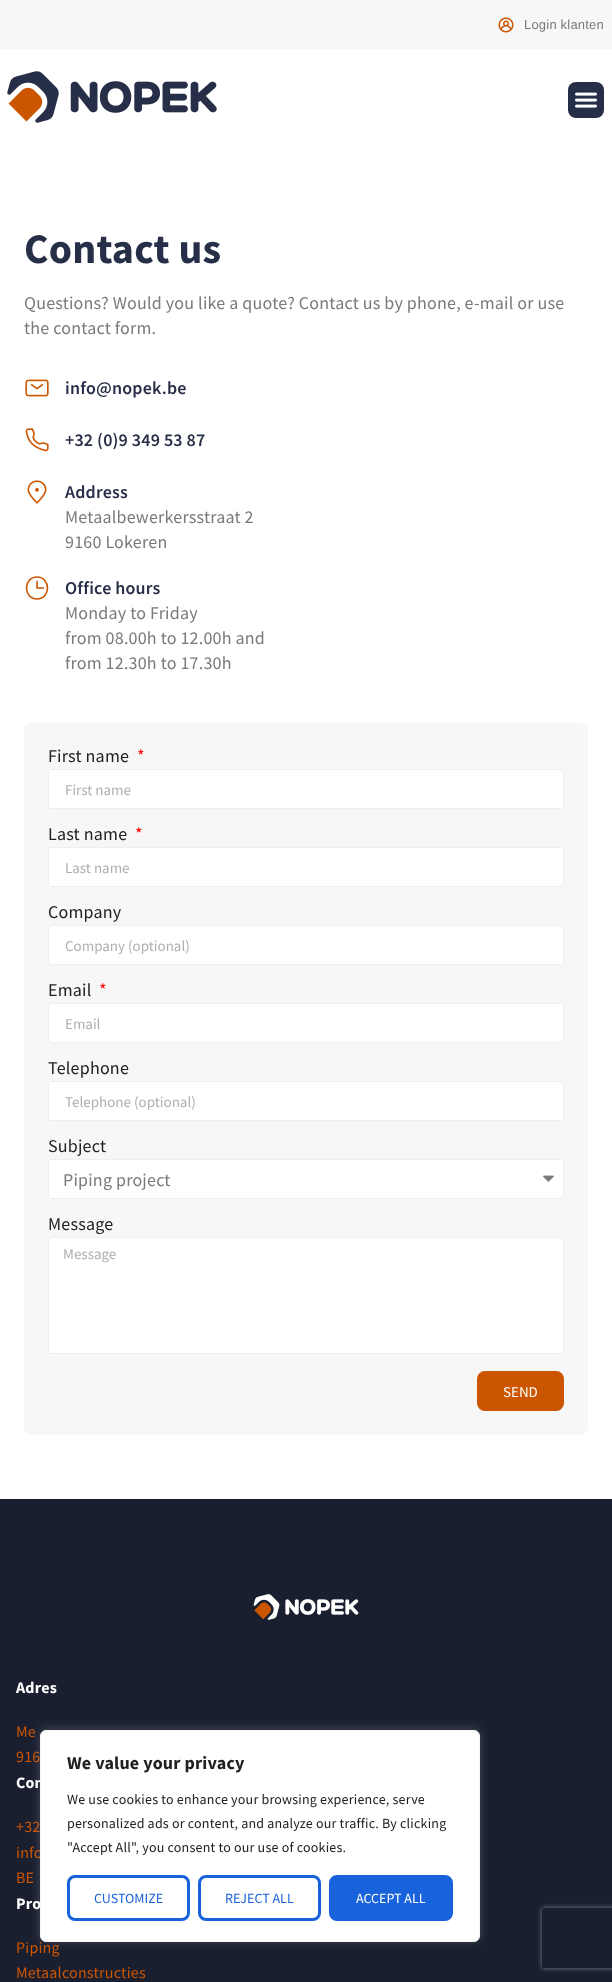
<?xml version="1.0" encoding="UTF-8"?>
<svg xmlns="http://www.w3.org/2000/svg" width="612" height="1982">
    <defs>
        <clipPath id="clip1"><path d="M 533 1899 H 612 V 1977 H 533 Z M 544 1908 H 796 C 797 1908 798 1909 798 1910 V 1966 C 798 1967 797 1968 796 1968 H 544 C 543 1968 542 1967 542 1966 V 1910 C 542 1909 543 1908 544 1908 Z" clip-rule="evenodd"/></clipPath>
        <filter id="blur1" x="-50%" y="-200%" width="200%" height="500%"><feGaussianBlur stdDeviation="2.5"/></filter>
        <filter id="blur2" x="-50%" y="-200%" width="200%" height="500%"><feGaussianBlur stdDeviation="5"/></filter>
    </defs>
    <rect width="100%" height="100%" fill="#FFFFFF"/>
    <rect x="0" y="0" width="612" height="49" fill="#F7F7F7"/>
    <image x="498" y="17" width="16" height="16" href="img_01.png"/>
    <text x="524" y="29" font-family="Liberation Sans" font-size="13" letter-spacing="0.2" fill="#797A7A">Login klanten</text>
    <image x="7" y="71" width="210" height="52" href="img_02.png"/>
    <rect x="568" y="82" width="36" height="36" rx="8" fill="#272E47"/>
    <image x="575" y="92" width="22" height="16" href="img_03.png"/>
    <text x="24" y="263" font-family="Source Sans Pro" font-size="42" font-weight="700" letter-spacing="0.2" fill="#272E47">Contact us</text>
    <text font-family="Source Sans Pro" font-size="18" letter-spacing="0.2" fill="#797A7A">
        <tspan x="24" y="309">Questions? Would you like a quote? Contact us by phone, e-mail or use</tspan>
        <tspan x="24" y="334">the contact form.</tspan>
    </text>
    <image x="25" y="379" width="24" height="18" href="img_04.png"/>
    <text x="65" y="394" font-family="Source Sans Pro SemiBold" font-size="18" font-weight="600" letter-spacing="0.2" fill="#272E47">info@nopek.be</text>
    <image x="25" y="428" width="24" height="24" href="img_05.png"/>
    <text x="65" y="446" font-family="Source Sans Pro SemiBold" font-size="18" font-weight="600" letter-spacing="0.2" fill="#272E47">+32 (0)9 349 53 87</text>
    <image x="27" y="480" width="20" height="24" href="img_06.png"/>
    <text x="65" y="498" font-family="Source Sans Pro SemiBold" font-size="18" font-weight="600" letter-spacing="0.2" fill="#272E47">Address</text>
    <text font-family="Source Sans Pro" font-size="18" letter-spacing="0.2" fill="#797A7A">
        <tspan x="65" y="523">Metaalbewerkersstraat 2</tspan>
        <tspan x="65" y="548">9160 Lokeren</tspan>
    </text>
    <path d="M 37 581.5 V 588 H 43.5 M 37 599 C 51 599 51 577 37 577 C 23 577 23 599 37 599 Z" fill="none" stroke="#CC5500" stroke-width="1.6" stroke-linecap="round" stroke-linejoin="round"/>
    <text x="65" y="594" font-family="Source Sans Pro SemiBold" font-size="18" font-weight="600" letter-spacing="0.2" fill="#272E47">Office hours</text>
    <text font-family="Source Sans Pro" font-size="18" letter-spacing="0.2" fill="#797A7A">
        <tspan x="65" y="619">Monday to Friday</tspan>
        <tspan x="65" y="644">from 08.00h to 12.00h and</tspan>
        <tspan x="65" y="669">from 12.30h to 17.30h</tspan>
    </text>
    <rect x="24" y="723" width="564" height="712" rx="8" fill="#F7F7F7"/>
    <text x="48" y="762" font-family="Source Sans Pro" font-size="18" letter-spacing="0.2" fill="#212121">First name</text>
    <text x="137" y="762" font-family="Source Sans Pro" font-size="18" letter-spacing="0.2" fill="#FF0000">*</text>
    <rect x="48.5" y="769.5" width="515" height="39" rx="2.5" fill="#FFFFFF" stroke="#EEEEEE"/>
    <text x="65" y="795" font-family="Source Sans Pro" font-size="15" fill="#AFAFAF">First name</text>
    <text x="48" y="840" font-family="Source Sans Pro" font-size="18" letter-spacing="0.2" fill="#212121">Last name</text>
    <text x="135" y="840" font-family="Source Sans Pro" font-size="18" letter-spacing="0.2" fill="#FF0000">*</text>
    <rect x="48.5" y="847.5" width="515" height="39" rx="2.5" fill="#FFFFFF" stroke="#EEEEEE"/>
    <text x="65" y="873" font-family="Source Sans Pro" font-size="15" fill="#AFAFAF">Last name</text>
    <text x="48" y="918" font-family="Source Sans Pro" font-size="18" letter-spacing="0.2" fill="#212121">Company</text>
    <rect x="48.5" y="925.5" width="515" height="39" rx="2.5" fill="#FFFFFF" stroke="#EEEEEE"/>
    <text x="65" y="951" font-family="Source Sans Pro" font-size="15" fill="#AFAFAF">Company (optional)</text>
    <text x="48" y="996" font-family="Source Sans Pro" font-size="18" letter-spacing="0.2" fill="#212121">Email</text>
    <text x="99" y="996" font-family="Source Sans Pro" font-size="18" letter-spacing="0.2" fill="#FF0000">*</text>
    <rect x="48.5" y="1003.5" width="515" height="39" rx="2.5" fill="#FFFFFF" stroke="#EEEEEE"/>
    <text x="65" y="1029" font-family="Source Sans Pro" font-size="15" fill="#AFAFAF">Email</text>
    <text x="48" y="1074" font-family="Source Sans Pro" font-size="18" letter-spacing="0.2" fill="#212121">Telephone</text>
    <rect x="48.5" y="1081.5" width="515" height="39" rx="2.5" fill="#FFFFFF" stroke="#EEEEEE"/>
    <text x="65" y="1107" font-family="Source Sans Pro" font-size="15" fill="#AFAFAF">Telephone (optional)</text>
    <text x="48" y="1152" font-family="Source Sans Pro" font-size="18" letter-spacing="0.2" fill="#212121">Subject</text>
    <rect x="48.5" y="1159.5" width="515" height="39" rx="2.5" fill="#FFFFFF" stroke="#EEEEEE"/>
    <text x="63" y="1186" font-family="Source Sans Pro" font-size="18" letter-spacing="0.2" fill="#797A7A">Piping project</text>
    <image x="543" y="1175" width="11" height="7" href="img_07.png"/>
    <text x="48" y="1230" font-family="Source Sans Pro" font-size="18" letter-spacing="0.2" fill="#212121">Message</text>
    <rect x="48.5" y="1237.5" width="515" height="116" rx="2.5" fill="#FFFFFF" stroke="#EEEEEE"/>
    <text x="63" y="1259" font-family="Source Sans Pro" font-size="15" fill="#AFAFAF">Message</text>
    <rect x="478" y="1372" width="85" height="38" rx="7" fill="#CC5500" stroke="#CC5500" stroke-width="2"/>
    <text x="503" y="1397" font-family="Source Sans Pro" font-size="15" fill="#FFFFFF">SEND</text>
    <rect x="0" y="1499" width="612" height="483" fill="#1A1F30"/>
    <g clip-path="url(#clip1)">
        <rect x="542" y="1908" width="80" height="60" rx="2" fill="#808080" filter="url(#blur1)"/>
    </g>
    <image x="253" y="1594" width="106" height="26" href="img_08.png"/>
    <text x="16" y="1693" font-family="Source Sans Pro" font-size="16" font-weight="700" letter-spacing="0.2" fill="#FFFFFF">Adres</text>
    <text font-family="Source Sans Pro" font-size="16" letter-spacing="0.2" fill="#CC5500">
        <tspan x="16" y="1737">Me</tspan>
        <tspan x="16" y="1762">916</tspan>
    </text>
    <text x="16" y="1788" font-family="Source Sans Pro" font-size="16" font-weight="700" letter-spacing="0.2" fill="#FFFFFF">Con</text>
    <text font-family="Source Sans Pro" font-size="16" letter-spacing="0.2" fill="#CC5500">
        <tspan x="16" y="1832">+32</tspan>
        <tspan x="16" y="1858">info</tspan>
        <tspan x="16" y="1883">BE</tspan>
    </text>
    <text x="16" y="1909" font-family="Source Sans Pro" font-size="16" font-weight="700" letter-spacing="0.2" fill="#FFFFFF">Pro</text>
    <text font-family="Source Sans Pro" font-size="16" letter-spacing="0.2" fill="#CC5500">
        <tspan x="16" y="1953">Piping</tspan>
        <tspan x="16" y="1978">Metaalconstructies</tspan>
    </text>
    <rect x="40" y="1729" width="440" height="212" rx="6" fill="#ACABAB" fill-opacity="0.3" filter="url(#blur2)"/>
    <rect x="40.5" y="1730.5" width="439" height="211" rx="5.5" fill="#FFFFFF" stroke="#F4F4F4"/>
    <text x="67" y="1769" font-family="Source Sans Pro" font-size="18" font-weight="700" letter-spacing="0.2" fill="#212121">We value your privacy</text>
    <text font-family="Source Sans Pro" font-size="14" letter-spacing="0.2" fill="#212121">
        <tspan x="67" y="1804">We use cookies to enhance your browsing experience, serve</tspan>
        <tspan x="67" y="1828">personalized ads or content, and analyze our traffic. By clicking</tspan>
        <tspan x="67" y="1852">"Accept All", you consent to our use of cookies.</tspan>
    </text>
    <rect x="68.5" y="1876.5" width="120" height="43" rx="6.5" fill="none" stroke="#1863DC" stroke-width="3"/>
    <text x="94" y="1903" font-family="Source Sans Pro" font-size="14" fill="#1863DC">CUSTOMIZE</text>
    <rect x="199.5" y="1876.5" width="120" height="43" rx="6.5" fill="none" stroke="#1863DC" stroke-width="3"/>
    <text x="225" y="1903" font-family="Source Sans Pro" font-size="14" fill="#1863DC">REJECT ALL</text>
    <rect x="330.5" y="1876.5" width="121" height="43" rx="6.5" fill="#1863DC" stroke="#1863DC" stroke-width="3"/>
    <text x="356" y="1903" font-family="Source Sans Pro" font-size="14" fill="#FFFFFF">ACCEPT ALL</text>
</svg>
